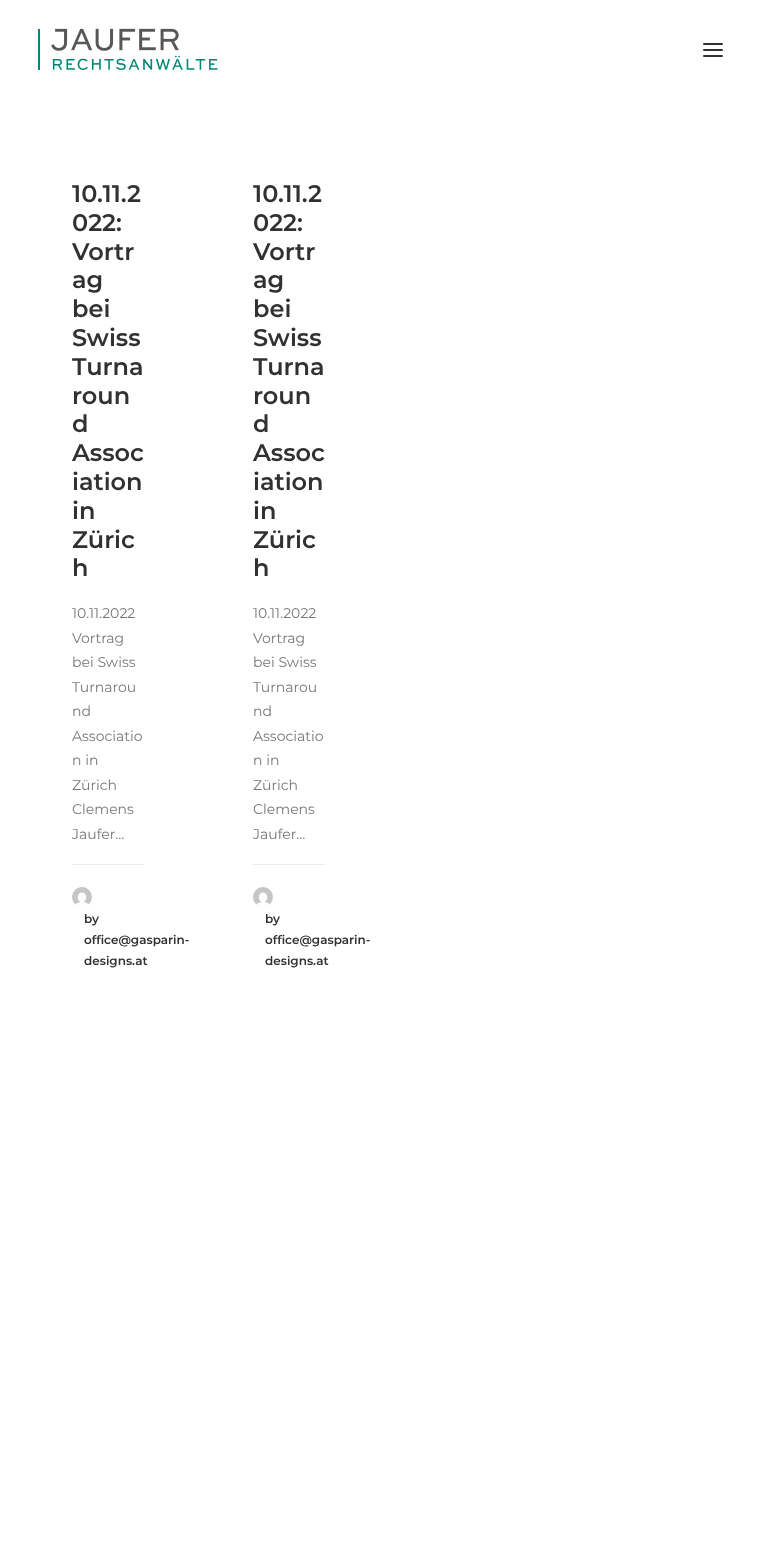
<?xml version="1.0" encoding="UTF-8"?>
<svg xmlns="http://www.w3.org/2000/svg" width="759" height="1566">
    <rect width="100%" height="100%" fill="#FFFFFF"/>
    <image x="38" y="28" width="180" height="42" href="img_01.png"/>
    <rect x="703" y="49" width="20" height="2" rx="1" fill="#303133"/>
    <rect x="703" y="43" width="20" height="2" rx="1" fill="#303133"/>
    <rect x="703" y="55" width="20" height="2" rx="1" fill="#303133"/>
    <text font-family="Montserrat" font-size="24" font-weight="100" fill="#303133">
        <tspan x="72" y="202">10.11.2</tspan>
        <tspan x="72" y="231">022:</tspan>
        <tspan x="72" y="260">Vortr</tspan>
        <tspan x="72" y="288">ag</tspan>
        <tspan x="72" y="317">bei</tspan>
        <tspan x="72" y="346">Swiss</tspan>
        <tspan x="72" y="375">Turna</tspan>
        <tspan x="72" y="404">roun</tspan>
        <tspan x="72" y="432">d</tspan>
        <tspan x="72" y="461">Assoc</tspan>
        <tspan x="72" y="490">iation</tspan>
        <tspan x="72" y="519">in</tspan>
        <tspan x="72" y="548">Züric</tspan>
        <tspan x="72" y="576">h</tspan>
    </text>
    <text font-family="'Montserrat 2'" font-size="14" font-weight="100" fill="#777777">
        <tspan x="72" y="618">10.11.2022</tspan>
        <tspan x="72" y="643">Vortrag</tspan>
        <tspan x="72" y="667">bei Swiss</tspan>
        <tspan x="72" y="692">Turnarou</tspan>
        <tspan x="72" y="716">nd</tspan>
        <tspan x="72" y="741">Associatio</tspan>
        <tspan x="72" y="765">n in</tspan>
        <tspan x="72" y="790">Zürich</tspan>
        <tspan x="72" y="814">Clemens</tspan>
        <tspan x="72" y="839">Jaufer…</tspan>
    </text>
    <rect x="72" y="864" width="72" height="1" fill="#EAEAEA"/>
    <image x="72" y="887" width="20" height="18" href="img_02.png"/>
    <text font-family="Montserrat" font-size="12" font-weight="100" fill="#303133">
        <tspan x="84" y="923">by</tspan>
        <tspan x="84" y="944">office@gasparin-</tspan>
        <tspan x="84" y="965">designs.at</tspan>
    </text>
    <text font-family="Montserrat" font-size="24" font-weight="100" fill="#303133">
        <tspan x="253" y="202">10.11.2</tspan>
        <tspan x="253" y="231">022:</tspan>
        <tspan x="253" y="260">Vortr</tspan>
        <tspan x="253" y="288">ag</tspan>
        <tspan x="253" y="317">bei</tspan>
        <tspan x="253" y="346">Swiss</tspan>
        <tspan x="253" y="375">Turna</tspan>
        <tspan x="253" y="404">roun</tspan>
        <tspan x="253" y="432">d</tspan>
        <tspan x="253" y="461">Assoc</tspan>
        <tspan x="253" y="490">iation</tspan>
        <tspan x="253" y="519">in</tspan>
        <tspan x="253" y="548">Züric</tspan>
        <tspan x="253" y="576">h</tspan>
    </text>
    <text font-family="'Montserrat 2'" font-size="14" font-weight="100" fill="#777777">
        <tspan x="253" y="618">10.11.2022</tspan>
        <tspan x="253" y="643">Vortrag</tspan>
        <tspan x="253" y="667">bei Swiss</tspan>
        <tspan x="253" y="692">Turnarou</tspan>
        <tspan x="253" y="716">nd</tspan>
        <tspan x="253" y="741">Associatio</tspan>
        <tspan x="253" y="765">n in</tspan>
        <tspan x="253" y="790">Zürich</tspan>
        <tspan x="253" y="814">Clemens</tspan>
        <tspan x="253" y="839">Jaufer…</tspan>
    </text>
    <rect x="253" y="864" width="72" height="1" fill="#EAEAEA"/>
    <image x="253" y="887" width="20" height="18" href="img_03.png"/>
    <text font-family="Montserrat" font-size="12" font-weight="100" fill="#303133">
        <tspan x="265" y="923">by</tspan>
        <tspan x="265" y="944">office@gasparin-</tspan>
        <tspan x="265" y="965">designs.at</tspan>
    </text>
</svg>
